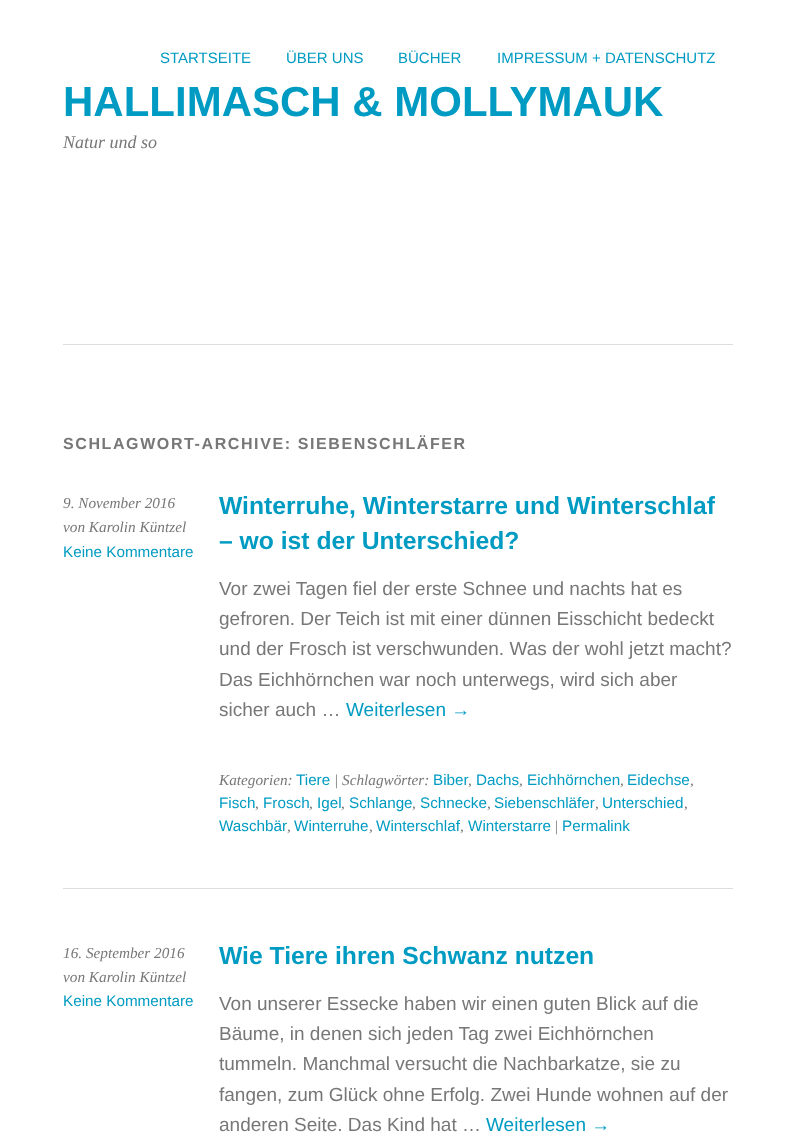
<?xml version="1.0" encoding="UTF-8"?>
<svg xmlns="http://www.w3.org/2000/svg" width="795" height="1144">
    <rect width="100%" height="100%" fill="#FFFFFF"/>
    <text x="160" y="63" font-family="Liberation Sans" font-size="15" fill="#009BC2">STARTSEITE</text>
    <text x="286" y="63" font-family="Liberation Sans" font-size="15" fill="#009BC2">ÜBER UNS</text>
    <text x="398" y="63" font-family="Liberation Sans" font-size="15" fill="#009BC2">BÜCHER</text>
    <text x="497" y="63" font-family="Liberation Sans" font-size="15" fill="#009BC2">IMPRESSUM + DATENSCHUTZ</text>
    <text x="63" y="116" font-family="Liberation Sans" font-size="42" font-weight="700" fill="#009BC2">HALLIMASCH &amp; MOLLYMAUK</text>
    <text x="63" y="148" font-family="Liberation Serif" font-size="18" font-style="italic" fill="#777777">Natur und so</text>
    <rect x="63" y="344" width="670" height="1" fill="#DDDDDD"/>
    <text x="63" y="449" font-family="Liberation Sans" font-size="16" font-weight="700" letter-spacing="1.6" fill="#777777">SCHLAGWORT-ARCHIVE: SIEBENSCHLÄFER</text>
    <rect x="63" y="888" width="670" height="1" fill="#DDDDDD"/>
    <text font-family="Liberation Serif" font-size="15.25" font-style="italic" fill="#777777">
        <tspan x="63" y="508">9. November 2016</tspan>
        <tspan x="63" y="532">von Karolin Küntzel</tspan>
    </text>
    <text x="63" y="557" font-family="Liberation Sans" font-size="15.25" fill="#009BC2">Keine Kommentare</text>
    <text font-family="Liberation Sans" font-size="24.7" font-weight="700" fill="#009BC2">
        <tspan x="219" y="514">Winterruhe, Winterstarre und Winterschlaf</tspan>
        <tspan x="219" y="549">– wo ist der Unterschied?</tspan>
    </text>
    <text font-family="Liberation Sans" font-size="19" fill="#777777">
        <tspan x="219" y="595">Vor zwei Tagen fiel der erste Schnee und nachts hat es</tspan>
        <tspan x="219" y="625">gefroren. Der Teich ist mit einer dünnen Eisschicht bedeckt</tspan>
        <tspan x="219" y="655">und der Frosch ist verschwunden. Was der wohl jetzt macht?</tspan>
        <tspan x="219" y="686">Das Eichhörnchen war noch unterwegs, wird sich aber</tspan>
        <tspan x="219" y="716">sicher auch …</tspan>
    </text>
    <text x="346" y="716" font-family="Liberation Sans" font-size="19" fill="#009BC2">Weiterlesen →</text>
    <text x="219" y="785" font-family="Liberation Serif" font-size="15.25" font-style="italic" fill="#777777">Kategorien:</text>
    <text x="296" y="785" font-family="Liberation Sans" font-size="15.25" fill="#009BC2">Tiere</text>
    <text x="334" y="785" font-family="Liberation Serif" font-size="15.25" font-style="italic" fill="#777777">| Schlagwörter:</text>
    <text x="433" y="785" font-family="Liberation Sans" font-size="15.25" fill="#009BC2">Biber</text>
    <text x="468" y="785" font-family="Liberation Serif" font-size="15.25" font-style="italic" fill="#777777">,</text>
    <text x="476" y="785" font-family="Liberation Sans" font-size="15.25" fill="#009BC2">Dachs</text>
    <text x="519" y="785" font-family="Liberation Serif" font-size="15.25" font-style="italic" fill="#777777">,</text>
    <text x="527" y="785" font-family="Liberation Sans" font-size="15.25" fill="#009BC2">Eichhörnchen</text>
    <text x="620" y="785" font-family="Liberation Serif" font-size="15.25" font-style="italic" fill="#777777">,</text>
    <text x="627" y="785" font-family="Liberation Sans" font-size="15.25" fill="#009BC2">Eidechse</text>
    <text x="690" y="785" font-family="Liberation Serif" font-size="15.25" font-style="italic" fill="#777777">,</text>
    <text x="219" y="808" font-family="Liberation Sans" font-size="15.25" fill="#009BC2">Fisch</text>
    <text x="255" y="808" font-family="Liberation Serif" font-size="15.25" font-style="italic" fill="#777777">,</text>
    <text x="263" y="808" font-family="Liberation Sans" font-size="15.25" fill="#009BC2">Frosch</text>
    <text x="309" y="808" font-family="Liberation Serif" font-size="15.25" font-style="italic" fill="#777777">,</text>
    <text x="317" y="808" font-family="Liberation Sans" font-size="15.25" fill="#009BC2">Igel</text>
    <text x="341" y="808" font-family="Liberation Serif" font-size="15.25" font-style="italic" fill="#777777">,</text>
    <text x="349" y="808" font-family="Liberation Sans" font-size="15.25" fill="#009BC2">Schlange</text>
    <text x="412" y="808" font-family="Liberation Serif" font-size="15.25" font-style="italic" fill="#777777">,</text>
    <text x="420" y="808" font-family="Liberation Sans" font-size="15.25" fill="#009BC2">Schnecke</text>
    <text x="487" y="808" font-family="Liberation Serif" font-size="15.25" font-style="italic" fill="#777777">,</text>
    <text x="494" y="808" font-family="Liberation Sans" font-size="15.25" fill="#009BC2">Siebenschläfer</text>
    <text x="595" y="808" font-family="Liberation Serif" font-size="15.25" font-style="italic" fill="#777777">,</text>
    <text x="602" y="808" font-family="Liberation Sans" font-size="15.25" fill="#009BC2">Unterschied</text>
    <text x="684" y="808" font-family="Liberation Serif" font-size="15.25" font-style="italic" fill="#777777">,</text>
    <text x="219" y="831" font-family="Liberation Sans" font-size="15.25" fill="#009BC2">Waschbär</text>
    <text x="287" y="831" font-family="Liberation Serif" font-size="15.25" font-style="italic" fill="#777777">,</text>
    <text x="294" y="831" font-family="Liberation Sans" font-size="15.25" fill="#009BC2">Winterruhe</text>
    <text x="369" y="831" font-family="Liberation Serif" font-size="15.25" font-style="italic" fill="#777777">,</text>
    <text x="376" y="831" font-family="Liberation Sans" font-size="15.25" fill="#009BC2">Winterschlaf</text>
    <text x="460" y="831" font-family="Liberation Serif" font-size="15.25" font-style="italic" fill="#777777">,</text>
    <text x="468" y="831" font-family="Liberation Sans" font-size="15.25" fill="#009BC2">Winterstarre</text>
    <text x="554" y="831" font-family="Liberation Serif" font-size="15.25" font-style="italic" fill="#777777">|</text>
    <text x="562" y="831" font-family="Liberation Sans" font-size="15.25" fill="#009BC2">Permalink</text>
    <text font-family="Liberation Serif" font-size="15.25" font-style="italic" fill="#777777">
        <tspan x="63" y="958">16. September 2016</tspan>
        <tspan x="63" y="982">von Karolin Küntzel</tspan>
    </text>
    <text x="63" y="1006" font-family="Liberation Sans" font-size="15.25" fill="#009BC2">Keine Kommentare</text>
    <text x="219" y="964" font-family="Liberation Sans" font-size="24.7" font-weight="700" fill="#009BC2">Wie Tiere ihren Schwanz nutzen</text>
    <text font-family="Liberation Sans" font-size="19" fill="#777777">
        <tspan x="219" y="1010">Von unserer Essecke haben wir einen guten Blick auf die</tspan>
        <tspan x="219" y="1040">Bäume, in denen sich jeden Tag zwei Eichhörnchen</tspan>
        <tspan x="219" y="1070">tummeln. Manchmal versucht die Nachbarkatze, sie zu</tspan>
        <tspan x="219" y="1101">fangen, zum Glück ohne Erfolg. Zwei Hunde wohnen auf der</tspan>
        <tspan x="219" y="1131">anderen Seite. Das Kind hat …</tspan>
    </text>
    <text x="486" y="1131" font-family="Liberation Sans" font-size="19" fill="#009BC2">Weiterlesen →</text>
</svg>
